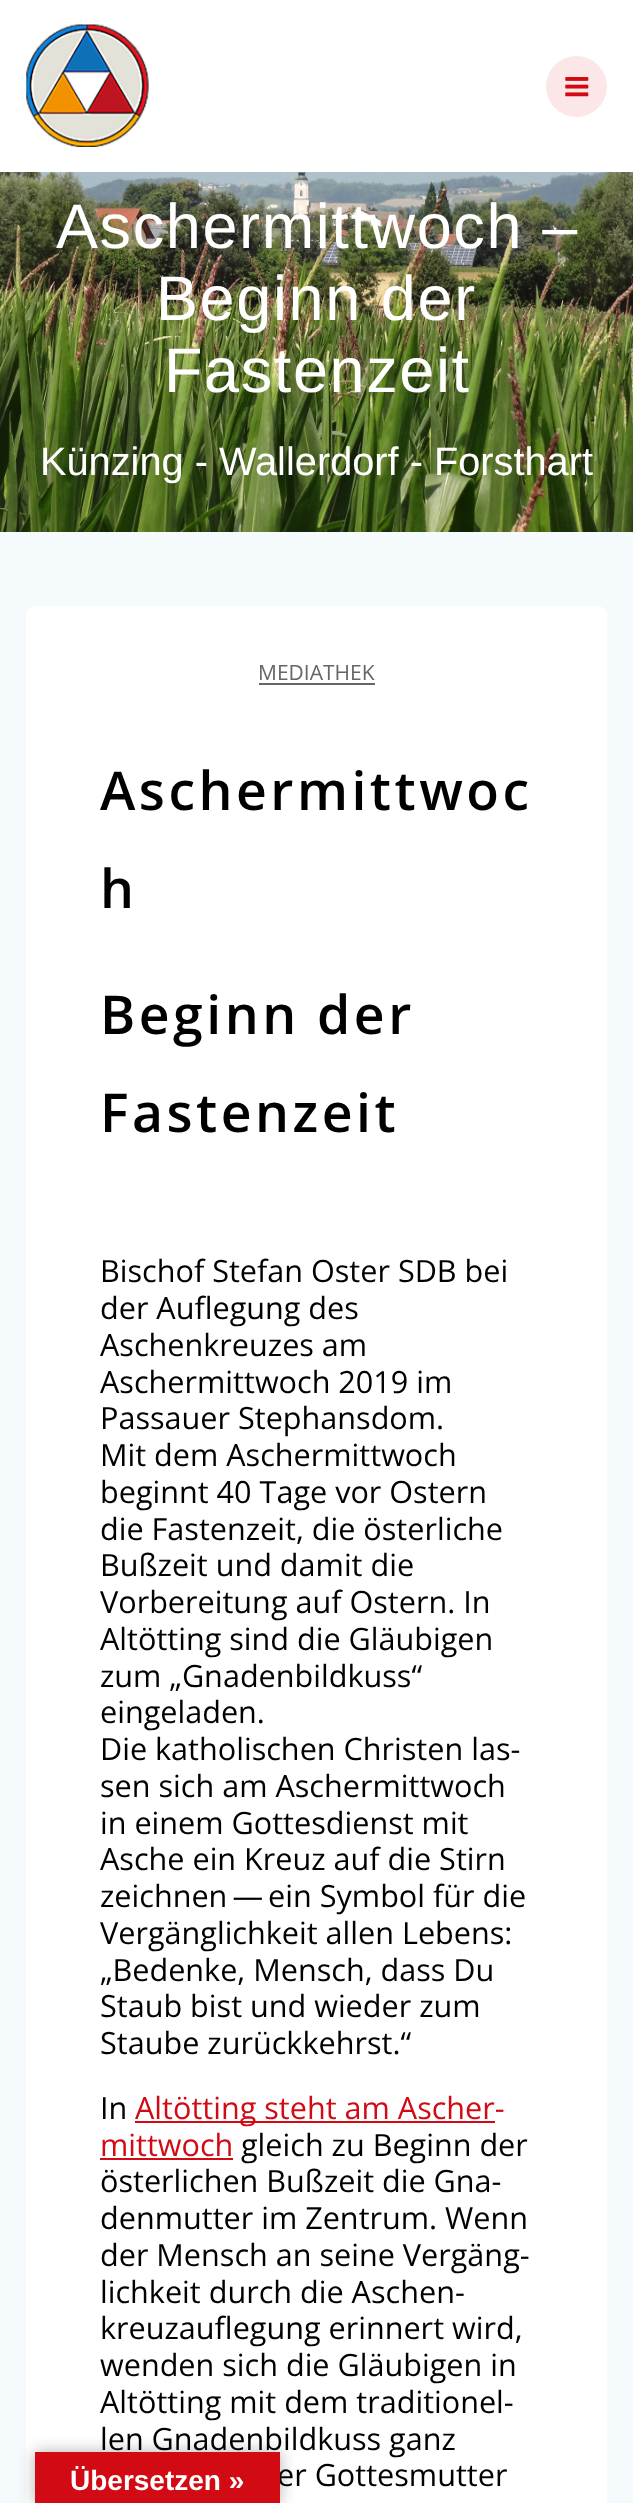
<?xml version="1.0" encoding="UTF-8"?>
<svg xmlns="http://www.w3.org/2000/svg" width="633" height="2503">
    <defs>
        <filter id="blur1" x="-50%" y="-200%" width="200%" height="500%"><feGaussianBlur stdDeviation="8"/></filter>
    </defs>
    <rect width="100%" height="100%" fill="#FFFFFF"/>
    <image x="26" y="24" width="123" height="123" href="img_01.png"/>
    <circle cx="576.5" cy="86.5" r="30.5" fill="#FBE7E7"/>
    <image x="565" y="77" width="24" height="20" href="img_02.png"/>
    <image x="0" y="172" width="633" height="360" href="img_03.png"/>
    <text x="56" y="248" font-family="Liberation Sans" font-size="63" letter-spacing="1.6" fill="#FFFFFF">Aschermittwoch –</text>
    <text x="156" y="320" font-family="Liberation Sans" font-size="63" letter-spacing="1.6" fill="#FFFFFF">Beginn der</text>
    <text x="164" y="392" font-family="Liberation Sans" font-size="63" letter-spacing="1.6" fill="#FFFFFF">Fastenzeit</text>
    <text x="40" y="475" font-family="Liberation Sans" font-size="39.75" fill="#FFFFFF">Künzing - Wallerdorf - Forsthart</text>
    <rect x="0" y="532" width="633" height="1971" fill="#F5FAFD"/>
    <rect x="26" y="606" width="581" height="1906" rx="9" fill="#FFFFFF"/>
    <text x="258" y="680" font-family="Open Sans" font-size="21" fill="#666666">MEDIATHEK</text>
    <rect x="259" y="683" width="116" height="2" fill="#666666"/>
    <text font-family="Open Sans" font-size="53.5" font-weight="600" letter-spacing="3.5" fill="#000000">
        <tspan x="100" y="810">Aschermittwoc</tspan>
        <tspan x="100" y="908">h</tspan>
    </text>
    <text font-family="Open Sans" font-size="53.5" font-weight="600" letter-spacing="3.5" fill="#000000">
        <tspan x="100" y="1034">Beginn der</tspan>
        <tspan x="100" y="1132">Fastenzeit</tspan>
    </text>
    <text font-family="Open Sans" font-size="30.6" fill="#000000">
        <tspan x="100" y="1282">Bischof Stefan Oster SDB bei</tspan>
        <tspan x="100" y="1319">der Auflegung des</tspan>
        <tspan x="100" y="1356">Aschenkreuzes am</tspan>
        <tspan x="100" y="1393">Aschermittwoch 2019 im</tspan>
        <tspan x="100" y="1429">Passauer Stephansdom.</tspan>
        <tspan x="100" y="1466">Mit dem Aschermittwoch</tspan>
        <tspan x="100" y="1503">beginnt 40 Tage vor Ostern</tspan>
        <tspan x="100" y="1540">die Fastenzeit, die österliche</tspan>
        <tspan x="100" y="1576">Bußzeit und damit die</tspan>
        <tspan x="100" y="1613">Vorbereitung auf Ostern. In</tspan>
        <tspan x="100" y="1650">Altötting sind die Gläubigen</tspan>
        <tspan x="100" y="1687">zum „Gnadenbildkuss“</tspan>
        <tspan x="100" y="1723">eingeladen.</tspan>
        <tspan x="100" y="1760">Die katholischen Christen las-</tspan>
        <tspan x="100" y="1797">sen sich am Aschermittwoch</tspan>
        <tspan x="100" y="1834">in einem Gottesdienst mit</tspan>
        <tspan x="100" y="1870">Asche ein Kreuz auf die Stirn</tspan>
        <tspan x="100" y="1907">zeichnen — ein Symbol für die</tspan>
        <tspan x="100" y="1944">Vergänglichkeit allen Lebens:</tspan>
        <tspan x="100" y="1981">„Bedenke, Mensch, dass Du</tspan>
        <tspan x="100" y="2017">Staub bist und wieder zum</tspan>
        <tspan x="100" y="2054">Staube zurückkehrst.“</tspan>
    </text>
    <text x="100" y="2119" font-family="Open Sans" font-size="30.6" fill="#000000">In</text>
    <rect x="135" y="2121" width="360" height="2" fill="#D20A13"/>
    <text x="135" y="2119" font-family="Open Sans" font-size="30.6" fill="#D20A13">Altötting steht am Ascher-</text>
    <text x="100" y="2156" font-family="Open Sans" font-size="30.6" fill="#D20A13">mittwoch</text>
    <rect x="100" y="2158" width="133" height="2" fill="#D20A13"/>
    <text x="241" y="2156" font-family="Open Sans" font-size="30.6" fill="#000000">gleich zu Beginn der</text>
    <text font-family="Open Sans" font-size="30.6" fill="#000000">
        <tspan x="100" y="2192">österlichen Bußzeit die Gna-</tspan>
        <tspan x="100" y="2229">denmutter im Zentrum. Wenn</tspan>
        <tspan x="100" y="2266">der Mensch an seine Vergäng-</tspan>
        <tspan x="100" y="2303">lichkeit durch die Aschen-</tspan>
        <tspan x="100" y="2339">kreuzauflegung erinnert wird,</tspan>
        <tspan x="100" y="2376">wenden sich die Gläubigen in</tspan>
        <tspan x="100" y="2413">Altötting mit dem traditionel-</tspan>
        <tspan x="100" y="2450">len Gnadenbildkuss ganz</tspan>
    </text>
    <text x="277" y="2486" font-family="Open Sans" font-size="30.6" fill="#000000">er Gottesmutter</text>
    <rect x="35" y="2452" width="245" height="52" fill="#000000" fill-opacity="0.3" filter="url(#blur1)"/>
    <rect x="35" y="2452" width="245" height="51" fill="#D20A13"/>
    <text x="70" y="2490" font-family="Liberation Sans" font-size="28" font-weight="700" fill="#FFFFFF">Übersetzen »</text>
</svg>
